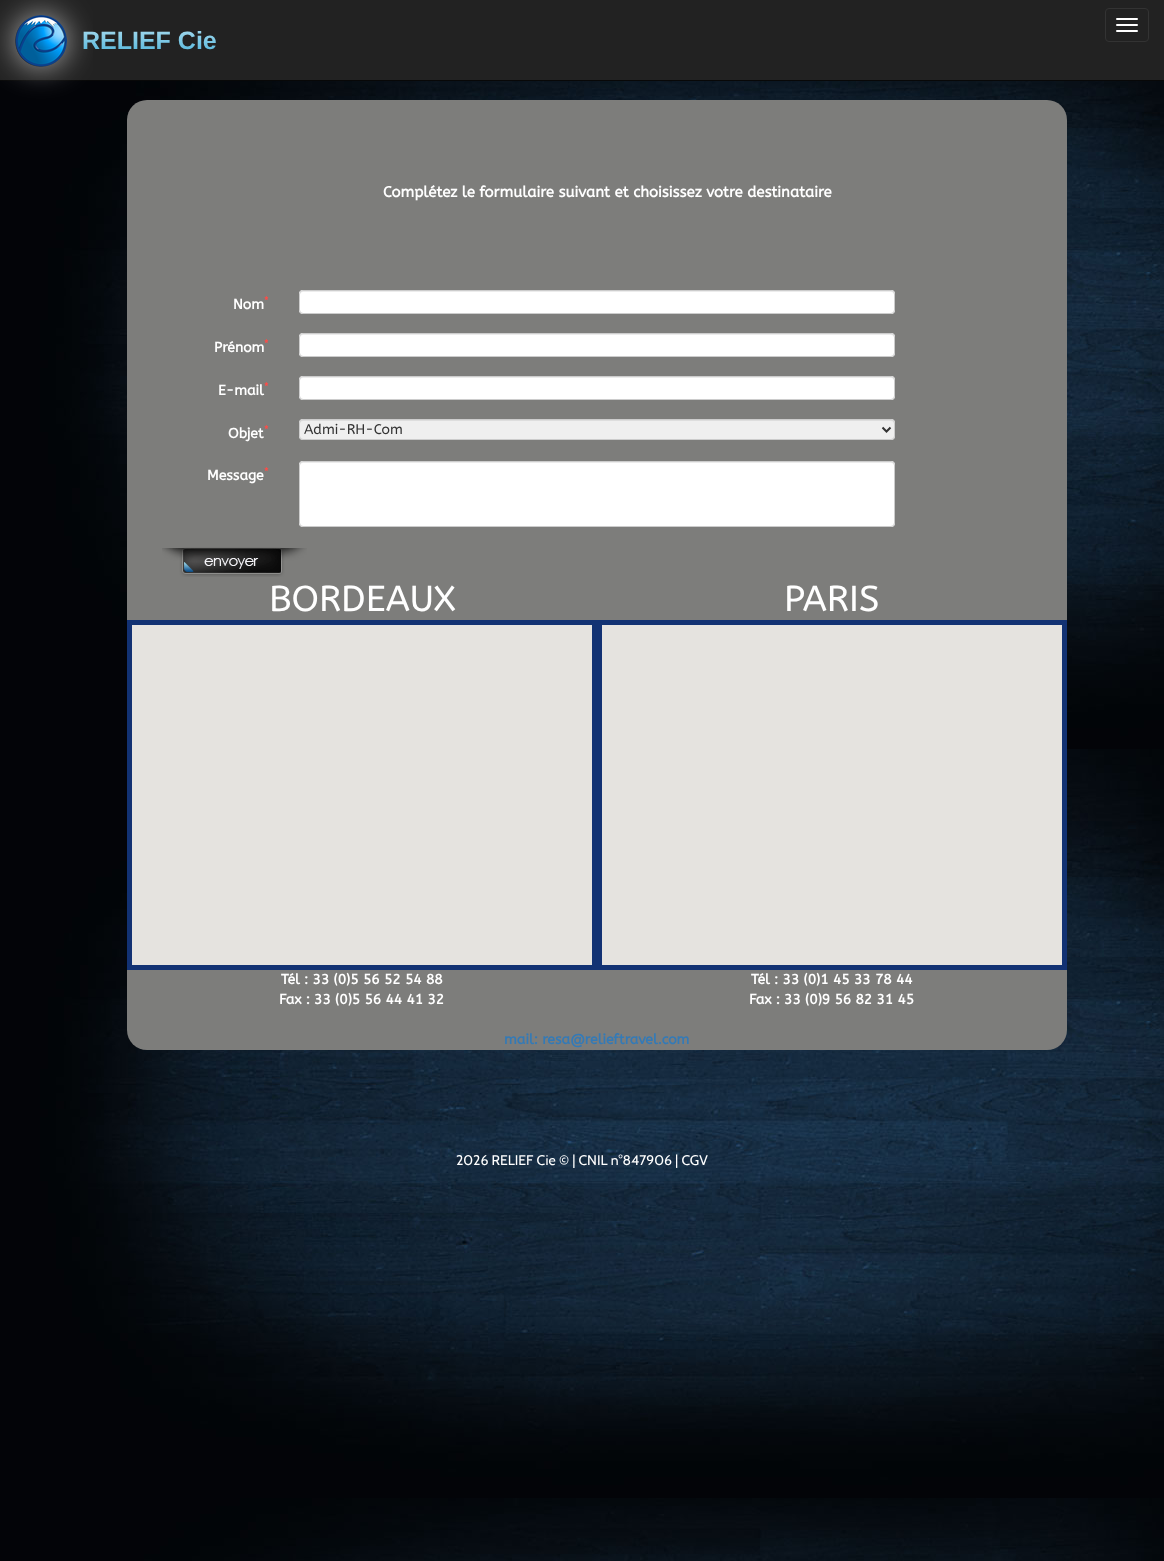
<?xml version="1.0" encoding="UTF-8"?>
<svg xmlns="http://www.w3.org/2000/svg" width="1164" height="1561">
    <defs>
        <linearGradient id="g1" gradientUnits="userSpaceOnUse" x1="149" y1="0" x2="149" y2="80"><stop offset="0" stop-color="#FFFFFF"/><stop offset="1" stop-color="#0094CC"/></linearGradient>
        <filter id="blur1" x="-50%" y="-200%" width="200%" height="500%"><feGaussianBlur stdDeviation="15"/></filter>
    </defs>
    <rect width="100%" height="100%" fill="#FFFFFF"/>
    <image x="0" y="81" width="1164" height="1480" href="img_01.png"/>
    <rect x="0" y="0" width="1164" height="80" fill="#222222"/>
    <rect x="0" y="80" width="1164" height="1" fill="#080808"/>
    <rect x="15" y="15" width="52" height="52" rx="25" fill="#AAAAAA" filter="url(#blur1)"/>
    <image x="15" y="15" width="52" height="52" href="img_02.png"/>
    <text x="82" y="49" font-family="Liberation Sans" font-size="25" font-weight="700" fill="url(#g1)">RELIEF Cie</text>
    <rect x="1105.5" y="8.5" width="43" height="33" rx="3.5" fill="none" stroke="#333333"/>
    <rect x="1116" y="18" width="22" height="2" rx="1" fill="#FFFFFF"/>
    <rect x="1116" y="24" width="22" height="2" rx="1" fill="#FFFFFF"/>
    <rect x="1116" y="30" width="22" height="2" rx="1" fill="#FFFFFF"/>
    <rect x="127" y="100" width="940" height="950" rx="20" fill="#7D7D7B"/>
    <text x="383" y="197" font-family="ABeeZee" font-size="15" font-weight="700" fill="#FFFFFF">Complétez le formulaire suivant et choisissez votre destinataire</text>
    <text x="264" y="304" font-family="ABeeZee" font-size="10" font-weight="700" fill="#FF4C47">*</text>
    <text x="233" y="309" font-family="ABeeZee" font-size="14" font-weight="700" fill="#FFFFFF">Nom</text>
    <rect x="299" y="290" width="596" height="24" rx="4" fill="#FFFFFF"/>
    <path d="M 303 292 H 891 C 893 292 894 293 894 295 V 294 C 894 292 893 291 891 291 H 303 C 301 291 300 292 300 294 V 295 C 300 293 301 292 303 292 Z" fill="#ECECEC"/>
    <rect x="299.5" y="290.5" width="595" height="23" rx="3.5" fill="none" stroke="#CCCCCC"/>
    <text x="214" y="352" font-family="ABeeZee" font-size="14" font-weight="700" fill="#FFFFFF">Prénom</text>
    <text x="264" y="347" font-family="ABeeZee" font-size="10" font-weight="700" fill="#FF4C47">*</text>
    <rect x="299" y="333" width="596" height="24" rx="4" fill="#FFFFFF"/>
    <path d="M 303 335 H 891 C 893 335 894 336 894 338 V 337 C 894 335 893 334 891 334 H 303 C 301 334 300 335 300 337 V 338 C 300 336 301 335 303 335 Z" fill="#ECECEC"/>
    <rect x="299.5" y="333.5" width="595" height="23" rx="3.5" fill="none" stroke="#CCCCCC"/>
    <text x="218" y="395" font-family="ABeeZee" font-size="14" font-weight="700" fill="#FFFFFF">E-mail</text>
    <text x="264" y="390" font-family="ABeeZee" font-size="10" font-weight="700" fill="#FF4C47">*</text>
    <rect x="299" y="376" width="596" height="24" rx="4" fill="#FFFFFF"/>
    <path d="M 303 378 H 891 C 893 378 894 379 894 381 V 380 C 894 378 893 377 891 377 H 303 C 301 377 300 378 300 380 V 381 C 300 379 301 378 303 378 Z" fill="#ECECEC"/>
    <rect x="299.5" y="376.5" width="595" height="23" rx="3.5" fill="none" stroke="#CCCCCC"/>
    <text x="228" y="438" font-family="ABeeZee" font-size="14" font-weight="700" fill="#FFFFFF">Objet</text>
    <text x="264" y="433" font-family="ABeeZee" font-size="10" font-weight="700" fill="#FF4C47">*</text>
    <rect x="299" y="419" width="596" height="21" rx="4" fill="#EFEFEF"/>
    <path d="M 303 421 H 891 C 893 421 894 422 894 424 V 423 C 894 421 893 420 891 420 H 303 C 301 420 300 421 300 423 V 424 C 300 422 301 421 303 421 Z" fill="#DDDDDD"/>
    <rect x="299.5" y="419.5" width="595" height="20" rx="3.5" fill="none" stroke="#CCCCCC"/>
    <path d="M 882.5 427.5 L 886.5 431.5 L 890.5 427.5" fill="none" stroke="#333333" stroke-width="2"/>
    <text x="304" y="434" font-family="ABeeZee" font-size="14" fill="#333333">Admi-RH-Com</text>
    <text x="264" y="475" font-family="ABeeZee" font-size="10" font-weight="700" fill="#FF4C47">*</text>
    <text x="207" y="480" font-family="ABeeZee" font-size="14" font-weight="700" fill="#FFFFFF">Message</text>
    <rect x="299" y="461" width="596" height="66" rx="4" fill="#FFFFFF"/>
    <path d="M 303 463 H 891 C 893 463 894 464 894 466 V 465 C 894 463 893 462 891 462 H 303 C 301 462 300 463 300 465 V 466 C 300 464 301 463 303 463 Z" fill="#ECECEC"/>
    <rect x="299.5" y="461.5" width="595" height="65" rx="3.5" fill="none" stroke="#CCCCCC"/>
    <image x="162" y="547" width="145" height="30" href="img_03.png"/>
    <text x="269" y="611" font-family="ABeeZee" font-size="36" fill="#FFFFFF">BORDEAUX</text>
    <rect x="129.5" y="622.5" width="465" height="345" fill="none" stroke="#123273" stroke-width="5"/>
    <rect x="132" y="625" width="460" height="340" fill="#E5E3DF"/>
    <text x="281" y="984" font-family="ABeeZee" font-size="14" font-weight="700" fill="#FFFFFF">Tél : 33 (0)5 56 52 54 88</text>
    <text x="279" y="1004" font-family="ABeeZee" font-size="14" font-weight="700" fill="#FFFFFF">Fax : 33 (0)5 56 44 41 32</text>
    <text x="784" y="611" font-family="ABeeZee" font-size="36" fill="#FFFFFF">PARIS</text>
    <rect x="599.5" y="622.5" width="465" height="345" fill="none" stroke="#123273" stroke-width="5"/>
    <rect x="602" y="625" width="460" height="340" fill="#E5E3DF"/>
    <text x="751" y="984" font-family="ABeeZee" font-size="14" font-weight="700" fill="#FFFFFF">Tél : 33 (0)1 45 33 78 44</text>
    <text x="749" y="1004" font-family="ABeeZee" font-size="14" font-weight="700" fill="#FFFFFF">Fax : 33 (0)9 56 82 31 45</text>
    <text x="504" y="1044" font-family="ABeeZee" font-size="14" font-weight="700" fill="#337AB7">mail: resa@relieftravel.com</text>
    <text x="456" y="1165" font-family="Cabin" font-size="14" fill="#FFFFFF">2026 RELIEF Cie © | CNIL n°847906 | CGV</text>
</svg>
